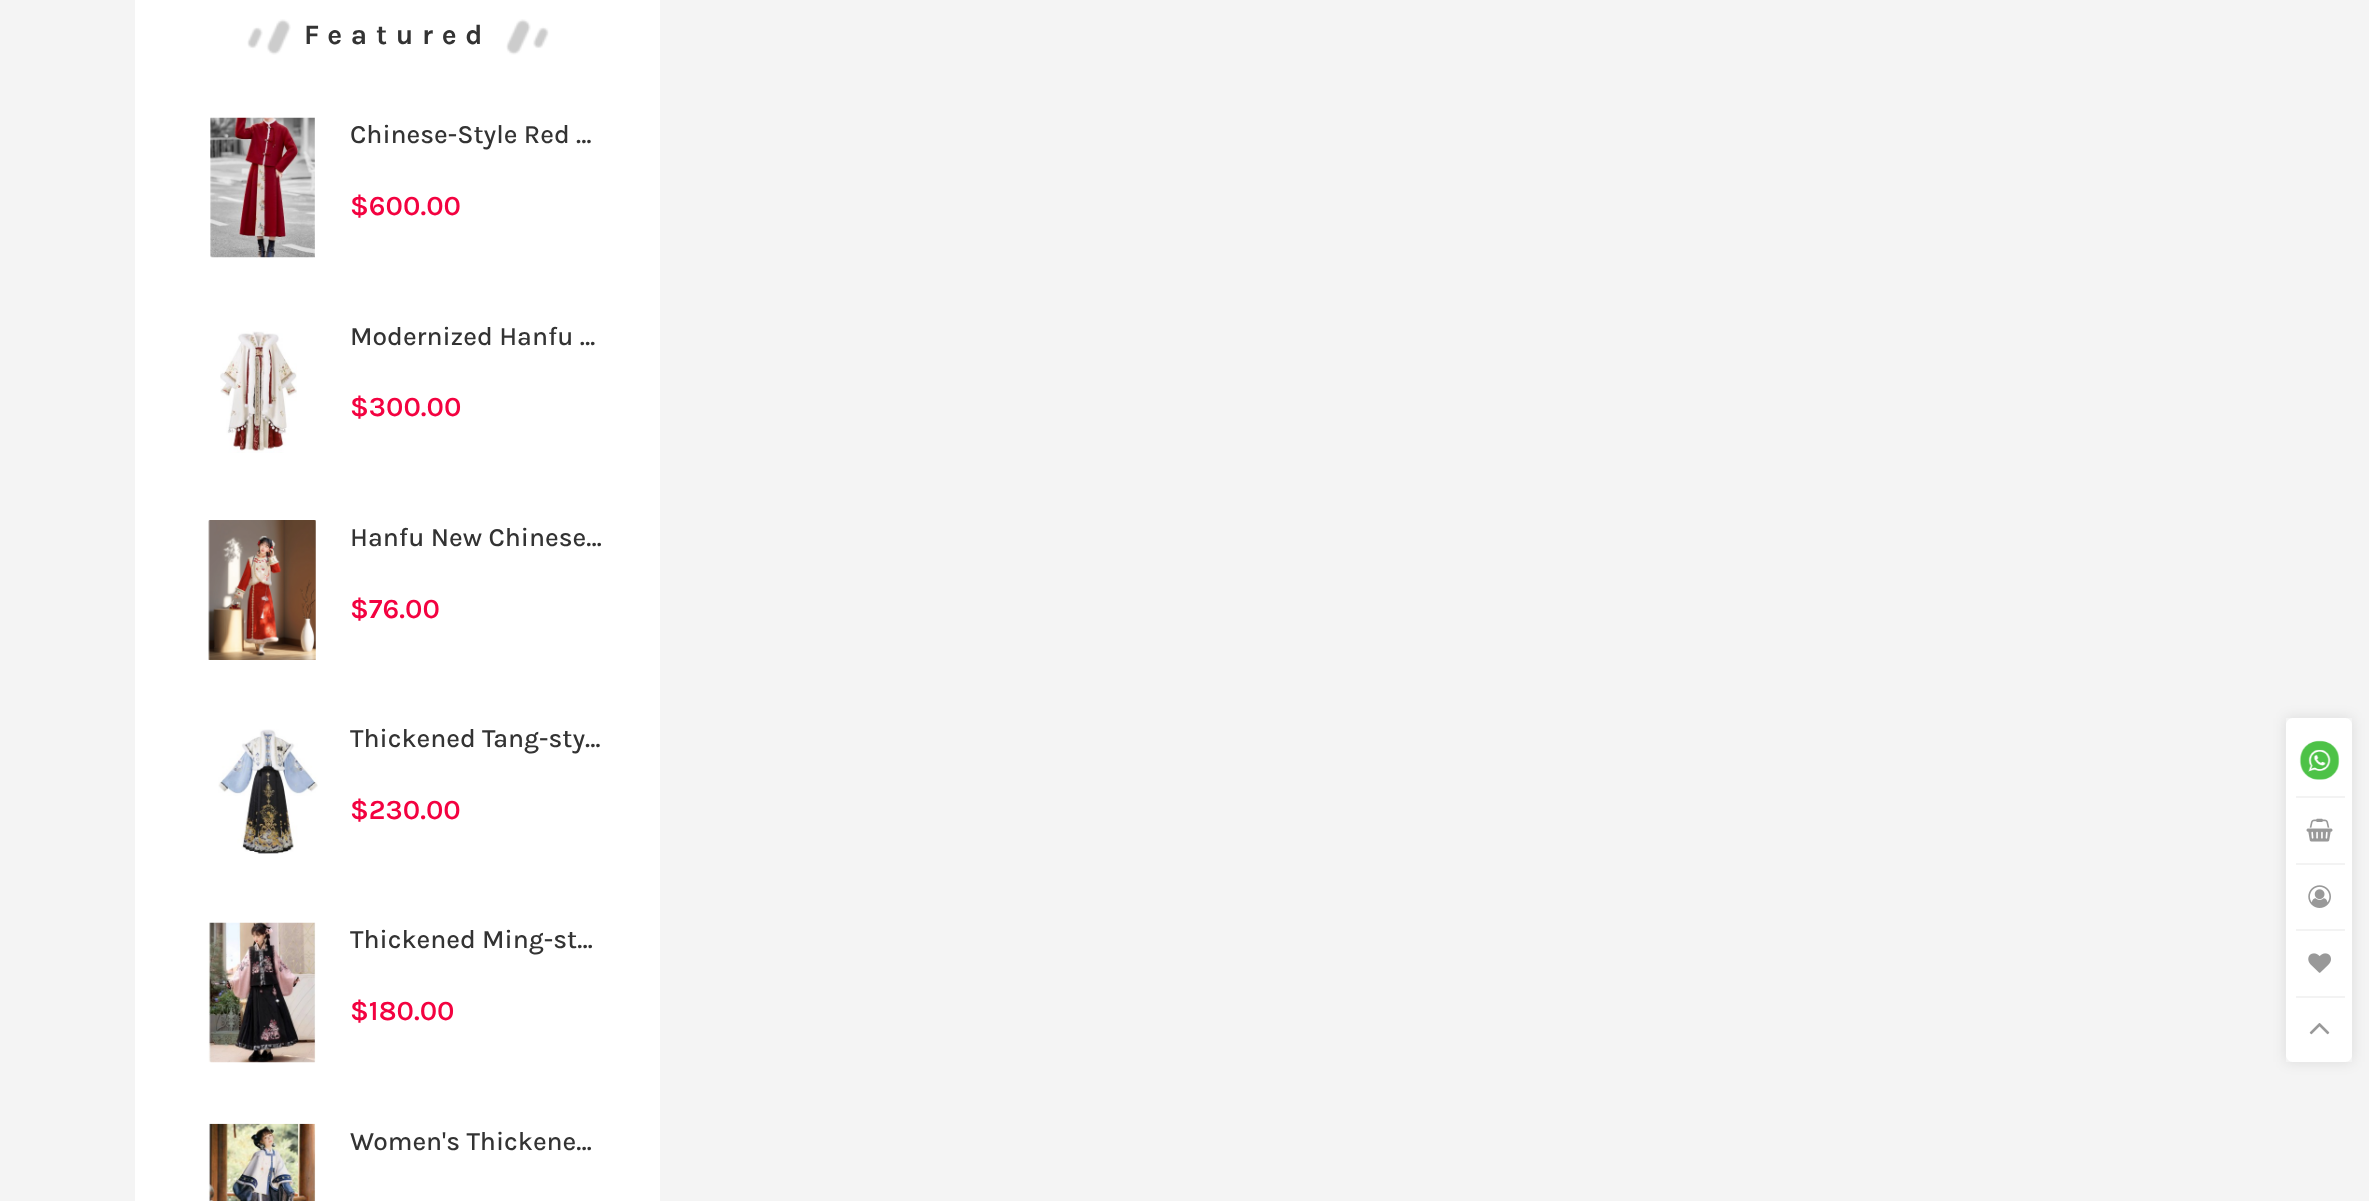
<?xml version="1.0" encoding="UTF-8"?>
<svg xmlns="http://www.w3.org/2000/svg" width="2369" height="1201">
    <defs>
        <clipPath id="clip1"><path d="M 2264 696 H 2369 V 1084 H 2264 Z M 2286 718 H 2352 V 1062 H 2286 Z" clip-rule="evenodd"/></clipPath>
        <filter id="blur1" x="-50%" y="-200%" width="200%" height="500%"><feGaussianBlur stdDeviation="7"/></filter>
    </defs>
    <rect width="100%" height="100%" fill="#F4F4F4"/>
    <rect x="135" y="0" width="525" height="1201" fill="#FFFFFF"/>
    <image x="247" y="19" width="44" height="36" href="img_01.png"/>
    <text x="304" y="44" font-family="Karla" font-size="28" font-weight="700" letter-spacing="8.75" fill="#333333">Featured</text>
    <image x="506" y="19" width="43" height="36" href="img_02.png"/>
    <image x="210" y="117" width="105" height="141" href="img_03.png"/>
    <text x="350" y="143" font-family="Karla" font-size="26.25" font-weight="500" fill="#333333">Chinese-Style Red …</text>
    <text x="350" y="215" font-family="Karla" font-size="28" font-weight="600" fill="#F30240">$600.00</text>
    <image x="220" y="331" width="77" height="122" href="img_04.png"/>
    <text x="350" y="345" font-family="Karla" font-size="26.25" font-weight="500" fill="#333333">Modernized Hanfu …</text>
    <text x="350" y="416" font-family="Karla" font-size="28" font-weight="600" fill="#F30240">$300.00</text>
    <image x="208" y="520" width="108" height="140" href="img_05.png"/>
    <text x="350" y="546" font-family="Karla" font-size="26.25" font-weight="500" fill="#333333">Hanfu New Chinese…</text>
    <text x="350" y="618" font-family="Karla" font-size="28" font-weight="600" fill="#F30240">$76.00</text>
    <image x="218" y="729" width="100" height="125" href="img_06.png"/>
    <text x="350" y="747" font-family="Karla" font-size="26.25" font-weight="500" fill="#333333">Thickened Tang-sty…</text>
    <text x="350" y="819" font-family="Karla" font-size="28" font-weight="600" fill="#F30240">$230.00</text>
    <image x="208" y="922" width="108" height="141" href="img_07.png"/>
    <text x="350" y="948" font-family="Karla" font-size="26.25" font-weight="500" fill="#333333">Thickened Ming-st…</text>
    <text x="350" y="1020" font-family="Karla" font-size="28" font-weight="600" fill="#F30240">$180.00</text>
    <image x="208" y="1123" width="108" height="78" href="img_08.png"/>
    <text x="350" y="1150" font-family="Karla" font-size="26.25" font-weight="500" fill="#333333">Women's Thickene…</text>
    <g clip-path="url(#clip1)">
        <rect x="2286" y="718" width="66" height="344" fill="#000000" fill-opacity="0.1" filter="url(#blur1)"/>
    </g>
    <path d="M 2293 718 H 2345 C 2349 718 2352 721 2352 725 V 798 H 2286 V 725 C 2286 721 2289 718 2293 718 Z" fill="#FFFFFF"/>
    <image x="2299" y="740" width="41" height="40" href="img_09.png"/>
    <rect x="2296" y="796" width="49" height="2" fill="#F3F3F3"/>
    <rect x="2286" y="798" width="66" height="200" fill="#FFFFFF"/>
    <image x="2306" y="818" width="27" height="24" href="img_10.png"/>
    <rect x="2296" y="863" width="49" height="2" fill="#F3F3F3"/>
    <image x="2308" y="885" width="23" height="23" href="img_11.png"/>
    <rect x="2296" y="929" width="49" height="2" fill="#F3F3F3"/>
    <image x="2308" y="953" width="23" height="20" href="img_12.png"/>
    <rect x="2296" y="996" width="49" height="2" fill="#F3F3F3"/>
    <path d="M 2286 998 H 2352 V 1055 C 2352 1059 2349 1062 2345 1062 H 2293 C 2289 1062 2286 1059 2286 1055 Z" fill="#FFFFFF"/>
    <image x="2309" y="1023" width="21" height="12" href="img_13.png"/>
</svg>
